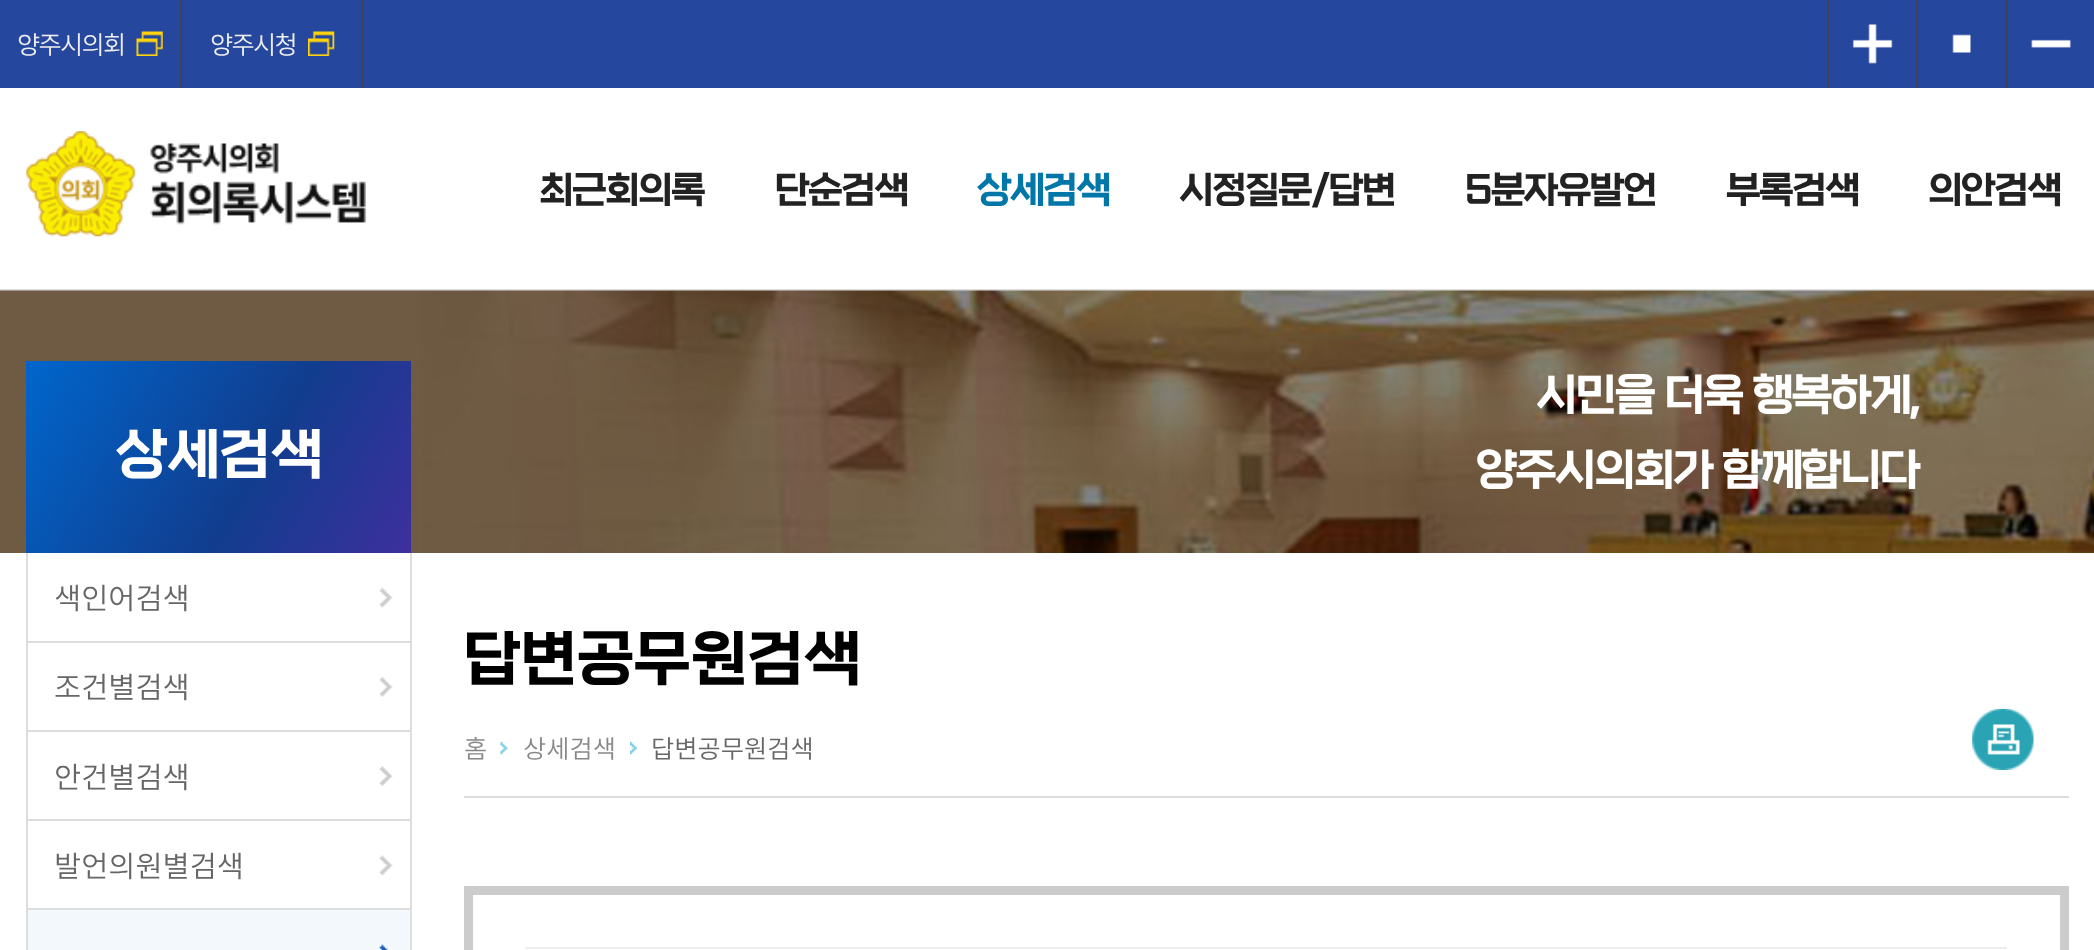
<?xml version="1.0" encoding="UTF-8"?>
<svg xmlns="http://www.w3.org/2000/svg" width="2094" height="950">
    <defs>
        <linearGradient id="g1" gradientUnits="userSpaceOnUse" x1="81" y1="266" x2="742" y2="648"><stop offset="0" stop-color="#0066CC"/><stop offset="0.33" stop-color="#113D8E"/><stop offset="0.67" stop-color="#5229A5"/><stop offset="1" stop-color="#8F6BDA"/></linearGradient>
    </defs>
    <rect width="100%" height="100%" fill="#FFFFFF"/>
    <rect x="0" y="0" width="2094" height="88" fill="#25479E"/>
    <rect x="0" y="289" width="2094" height="2" fill="#DDDDDD"/>
    <rect x="180" y="0" width="2" height="88" fill="#404259"/>
    <image x="136" y="31" width="27" height="25" href="img_01.png"/>
    <text x="17" y="54" font-family="Noto Sans KR" font-size="25.25" font-weight="300" letter-spacing="-1.75" fill="#EEEEEE">양주시의회</text>
    <rect x="362" y="0" width="2" height="88" fill="#404259"/>
    <image x="308" y="31" width="27" height="25" href="img_02.png"/>
    <text x="210" y="54" font-family="Noto Sans KR" font-size="25.25" font-weight="300" letter-spacing="-1.75" fill="#EEEEEE">양주시청</text>
    <rect x="1827" y="0" width="2" height="88" fill="#404259"/>
    <rect x="1916" y="0" width="2" height="88" fill="#404259"/>
    <image x="1852" y="24" width="41" height="40" href="img_03.png"/>
    <rect x="2006" y="0" width="2" height="88" fill="#404259"/>
    <image x="1952" y="34" width="19" height="19" href="img_04.png"/>
    <image x="2031" y="39" width="40" height="9" href="img_05.png"/>
    <image x="26" y="131" width="340" height="106" href="img_06.png"/>
    <text x="539" y="201" font-family="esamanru" font-size="37.75" font-weight="500" letter-spacing="-1.75" fill="#222222">최근회의록</text>
    <text x="775" y="201" font-family="esamanru" font-size="37.75" font-weight="500" letter-spacing="-1.75" fill="#222222">단순검색</text>
    <text x="977" y="201" font-family="esamanru" font-size="37.75" font-weight="500" letter-spacing="-1.75" fill="#0077A8">상세검색</text>
    <text x="1179" y="201" font-family="esamanru" font-size="37.75" font-weight="500" letter-spacing="-1.75" fill="#222222">시정질문/답변</text>
    <text x="1465" y="201" font-family="esamanru" font-size="37.75" font-weight="500" letter-spacing="-1.75" fill="#222222">5분자유발언</text>
    <text x="1726" y="201" font-family="esamanru" font-size="37.75" font-weight="500" letter-spacing="-1.75" fill="#222222">부록검색</text>
    <text x="1928" y="201" font-family="esamanru" font-size="37.75" font-weight="500" letter-spacing="-1.75" fill="#222222">의안검색</text>
    <image x="0" y="290" width="2094" height="263" href="img_15.png"/>
    <rect x="26" y="361" width="385" height="192" fill="url(#g1)"/>
    <text x="116" y="471" font-family="esamanru" font-size="56" font-weight="500" fill="#FFFFFF">상세검색</text>
    <rect x="410" y="553" width="2" height="397" fill="#DDDDDD"/>
    <rect x="26" y="553" width="2" height="397" fill="#DDDDDD"/>
    <rect x="28" y="641" width="382" height="2" fill="#DDDDDD"/>
    <image x="379" y="587" width="14" height="21" href="img_07.png"/>
    <text x="54" y="609" font-family="Noto Sans KR" font-size="29.5" font-weight="300" fill="#666666">색인어검색</text>
    <rect x="28" y="730" width="382" height="2" fill="#DDDDDD"/>
    <image x="379" y="677" width="14" height="20" href="img_08.png"/>
    <text x="54" y="698" font-family="Noto Sans KR" font-size="29.5" font-weight="300" fill="#666666">조건별검색</text>
    <rect x="28" y="819" width="382" height="2" fill="#DDDDDD"/>
    <image x="379" y="766" width="14" height="20" href="img_09.png"/>
    <text x="54" y="788" font-family="Noto Sans KR" font-size="29.5" font-weight="300" fill="#666666">안건별검색</text>
    <rect x="28" y="908" width="382" height="2" fill="#DDDDDD"/>
    <image x="379" y="855" width="14" height="20" href="img_10.png"/>
    <text x="54" y="877" font-family="Noto Sans KR" font-size="29.5" font-weight="300" fill="#666666">발언의원별검색</text>
    <rect x="28" y="910" width="382" height="40" fill="#F3F8FC"/>
    <image x="379" y="944" width="10" height="6" href="img_11.png"/>
    <rect x="464" y="796" width="1605" height="2" fill="#DDDDDD"/>
    <text x="464" y="677" font-family="esamanru" font-size="61.5" font-weight="500" fill="#000000">답변공무원검색</text>
    <text x="464" y="758" font-family="Noto Sans KR" font-size="25.25" font-weight="300" fill="#888888">홈</text>
    <image x="500" y="742" width="8" height="13" href="img_12.png"/>
    <text x="523" y="758" font-family="Noto Sans KR" font-size="25.25" font-weight="300" fill="#888888">상세검색</text>
    <image x="630" y="742" width="7" height="13" href="img_13.png"/>
    <text x="651" y="758" font-family="Noto Sans KR" font-size="25.25" font-weight="300" fill="#666666">답변공무원검색</text>
    <image x="1972" y="708" width="62" height="62" href="img_14.png"/>
    <rect x="468.5" y="890.5" width="1596" height="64" fill="none" stroke="#CCCCCC" stroke-width="9"/>
    <rect x="525" y="947" width="1482" height="2" fill="#EEEEEE"/>
    <text x="1536" y="408" font-family="esamanru" font-size="44.75" font-weight="500" letter-spacing="-1.75" fill="#FFFFFF">시민을 더욱 행복하게,</text>
    <text x="1476" y="483" font-family="esamanru" font-size="44.75" font-weight="500" letter-spacing="-1.75" fill="#FFFFFF">양주시의회가 함께합니다</text>
</svg>
